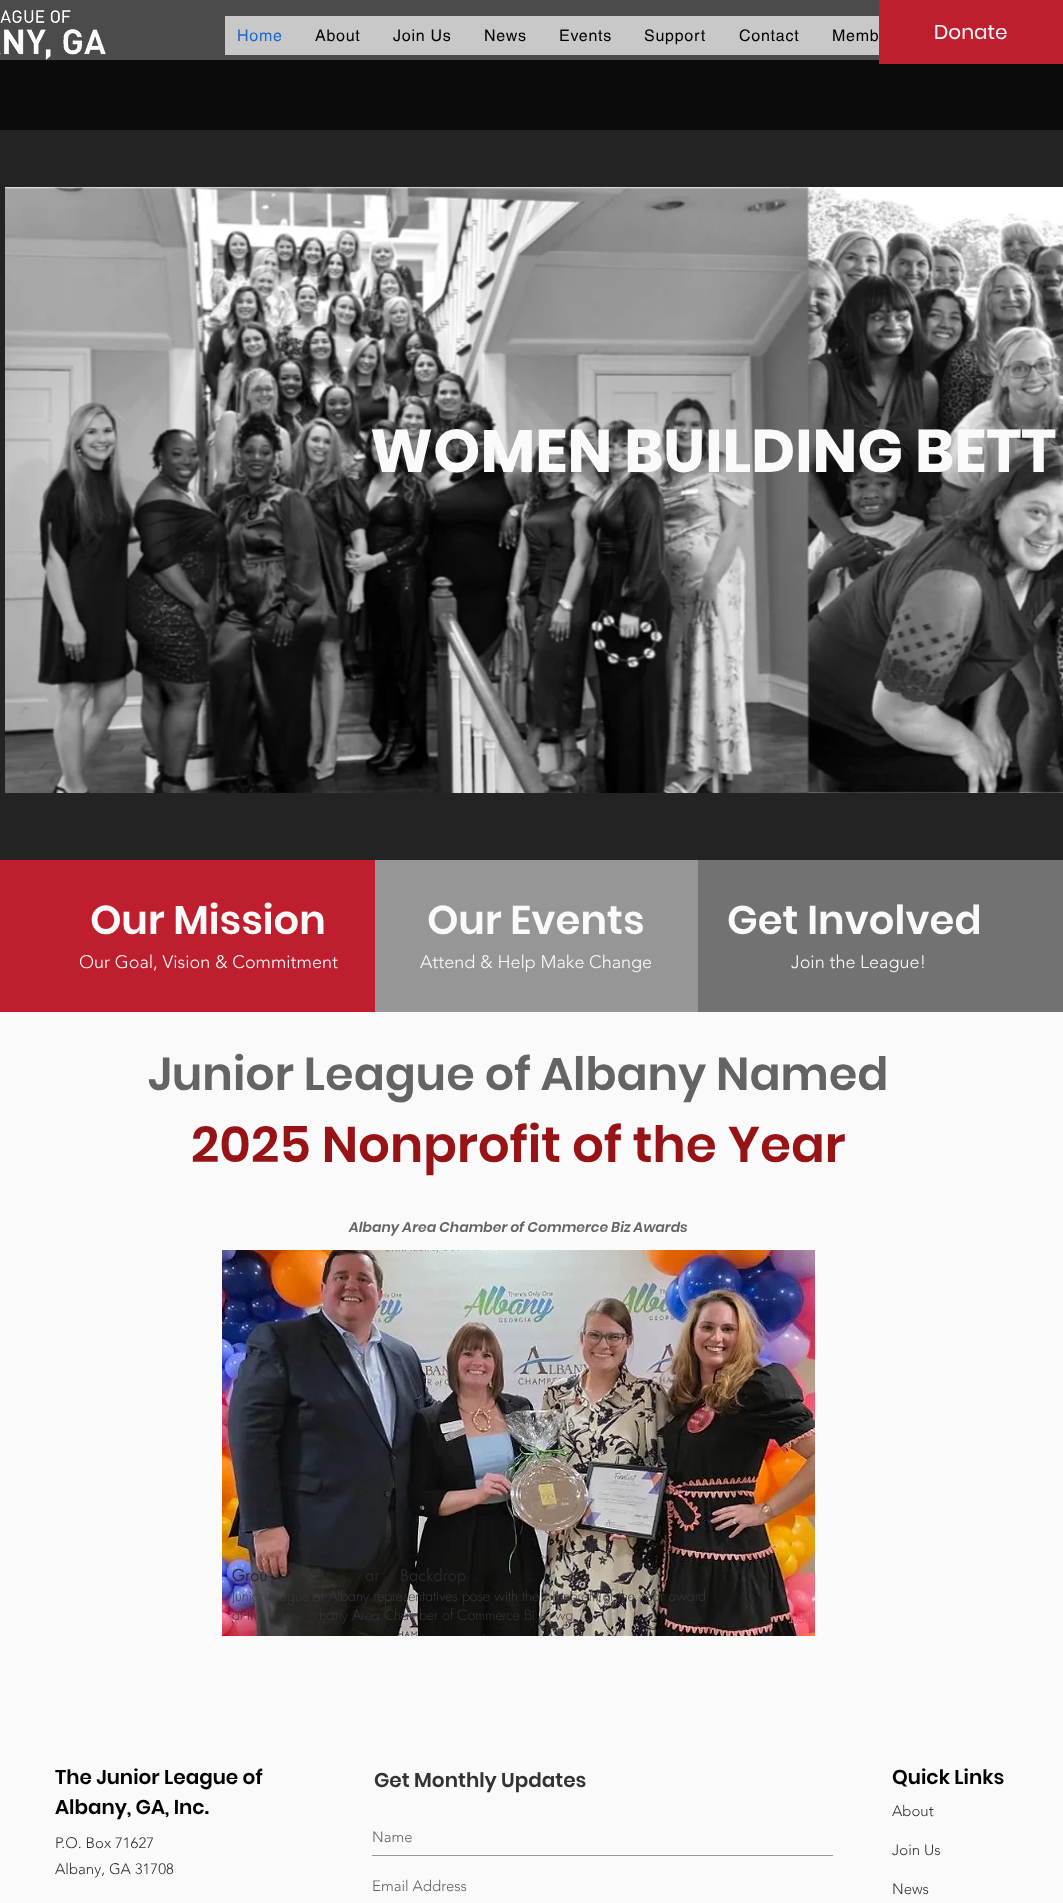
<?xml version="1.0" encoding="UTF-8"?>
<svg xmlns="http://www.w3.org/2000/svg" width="1063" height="1903">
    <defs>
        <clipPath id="clip1"><rect x="232" y="1587" width="483" height="39"/></clipPath>
    </defs>
    <rect width="100%" height="100%" fill="#FAFAFA"/>
    <rect x="0" y="0" width="879" height="60" fill="#4B4B4B"/>
    <image x="0" y="10" width="106" height="50" href="img_01.png"/>
    <rect x="225" y="16" width="654" height="39" fill="#C8C8C8"/>
    <text x="237" y="41" font-family="helvetica" font-size="16" letter-spacing="0.75" fill="#1D67CD">Home</text>
    <text x="315" y="41" font-family="helvetica" font-size="16" letter-spacing="0.75" fill="#000000">About</text>
    <text x="393" y="41" font-family="helvetica" font-size="16" letter-spacing="0.75" fill="#000000">Join Us</text>
    <text x="484" y="41" font-family="helvetica" font-size="16" letter-spacing="0.75" fill="#000000">News</text>
    <text x="559" y="41" font-family="helvetica" font-size="16" letter-spacing="0.75" fill="#000000">Events</text>
    <text x="644" y="41" font-family="helvetica" font-size="16" letter-spacing="0.75" fill="#000000">Support</text>
    <text x="739" y="41" font-family="helvetica" font-size="16" letter-spacing="0.75" fill="#000000">Contact</text>
    <text x="832" y="41" font-family="helvetica" font-size="16" letter-spacing="0.75" fill="#000000">Memb</text>
    <rect x="0" y="60" width="1063" height="70" fill="#0B0B0B"/>
    <rect x="879" y="0" width="184" height="64" fill="#BF1E2E"/>
    <text x="934" y="39" font-family="Poppins" font-size="20" fill="#FAFAFA">Donate</text>
    <rect x="0" y="130" width="1063" height="730" fill="#242323"/>
    <image x="5" y="187" width="1058" height="606" href="img_02.png"/>
    <text x="370" y="472" font-family="Poppins" font-size="60" font-weight="700" fill="#FAFAFA">WOMEN BUILDING BETT</text>
    <rect x="0" y="860" width="375" height="152" fill="#BF1E2E"/>
    <rect x="698" y="860" width="365" height="152" fill="#727272"/>
    <text x="90" y="934" font-family="Poppins" font-size="40" font-weight="600" fill="#FAFAFA">Our Mission</text>
    <text x="79" y="968" font-family="'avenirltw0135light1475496'" font-size="18" font-weight="300" fill="#FAFAFA">Our Goal, Vision &amp; Commitment</text>
    <rect x="375" y="860" width="323" height="152" fill="#969696"/>
    <text x="427" y="934" font-family="Poppins" font-size="40" font-weight="600" fill="#FAFAFA">Our Events</text>
    <text x="420" y="968" font-family="'avenirltw0135light1475496'" font-size="18" font-weight="300" fill="#FAFAFA">Attend &amp; Help Make Change</text>
    <text x="727" y="934" font-family="Poppins" font-size="40" font-weight="600" fill="#FAFAFA">Get Involved</text>
    <text x="791" y="968" font-family="'avenirltw0135light1475496'" font-size="18" font-weight="300" fill="#FAFAFA">Join the League!</text>
    <text x="148" y="1090" font-family="Poppins" font-size="46" font-weight="600" fill="#646464">Junior League of Albany Named</text>
    <text x="191" y="1162" font-family="Poppins" font-size="50" font-weight="600" fill="#971316">2025 Nonprofit of the Year</text>
    <text x="349" y="1232" font-family="Poppins" font-size="14" font-weight="600" font-style="italic" fill="#646464">Albany Area Chamber of Commerce Biz Awards</text>
    <image x="222" y="1250" width="593" height="386" href="img_03.png"/>
    <text x="232" y="1581" font-family="futura" font-size="16" fill="#29272F">Grou</text>
    <text x="365" y="1581" font-family="futura" font-size="16" fill="#29272F">ar</text>
    <text x="400" y="1581" font-family="futura" font-size="16" fill="#29272F">Backdrop</text>
    <g clip-path="url(#clip1)">
        <text x="232" y="1601" font-family="futura" font-size="14" font-weight="300" fill="#3C3B3B">Junior League of Albany representatives pose with the Nonprofit of the Year award</text>
    </g>
    <text x="232" y="1620" font-family="futura" font-size="14" font-weight="300" fill="#3F3434">at th</text>
    <text x="319" y="1620" font-family="futura" font-size="14" font-weight="300" fill="#3F3434">bany Area Chamber of Commerce Bi</text>
    <text x="555" y="1620" font-family="futura" font-size="14" font-weight="300" fill="#3F3434">wa</text>
    <text x="590" y="1620" font-family="futura" font-size="14" font-weight="300" fill="#3F3434">.</text>
    <text x="788" y="1623" font-family="Liberation Sans" font-size="12" fill="#D25266">1/5</text>
    <text font-family="Poppins" font-size="20" font-weight="600" fill="#000000">
        <tspan x="55" y="1784">The Junior League of</tspan>
        <tspan x="55" y="1814">Albany, GA, Inc.</tspan>
    </text>
    <text font-family="'avenirltw0135light1475496'" font-size="15" font-weight="300" fill="#323232">
        <tspan x="55" y="1848">P.O. Box 71627</tspan>
        <tspan x="55" y="1874">Albany, GA 31708</tspan>
    </text>
    <text x="892" y="1784" font-family="Poppins" font-size="20" font-weight="600" fill="#000000">Quick Links</text>
    <text x="892" y="1816" font-family="'avenirltw0135light1475496'" font-size="15" font-weight="300" fill="#323232">About</text>
    <text x="892" y="1855" font-family="'avenirltw0135light1475496'" font-size="15" font-weight="300" fill="#323232">Join Us</text>
    <text x="892" y="1894" font-family="'avenirltw0135light1475496'" font-size="15" font-weight="300" fill="#323232">News</text>
    <text x="374" y="1787" font-family="Poppins" font-size="20" font-weight="600" fill="#323232">Get Monthly Updates</text>
    <rect x="372" y="1855" width="461" height="1" fill="#969696"/>
    <text x="372" y="1842" font-family="'avenirltw0135light1475496'" font-size="15" font-weight="300" fill="#646464">Name</text>
    <text x="372" y="1891" font-family="'avenirltw0135light1475496'" font-size="15" font-weight="300" fill="#646464">Email Address</text>
</svg>
